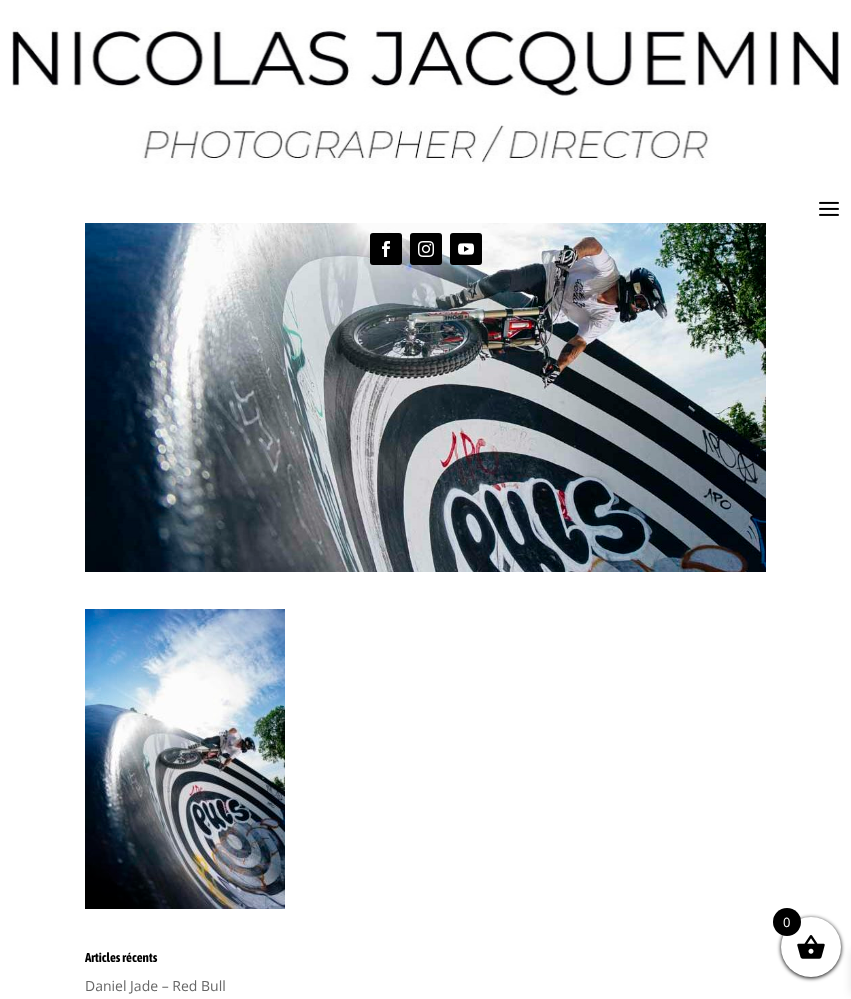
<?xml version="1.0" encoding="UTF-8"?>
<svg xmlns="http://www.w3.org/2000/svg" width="851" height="999">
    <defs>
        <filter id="blur1" x="-50%" y="-200%" width="200%" height="500%"><feGaussianBlur stdDeviation="2"/></filter>
        <filter id="blur2" x="-50%" y="-200%" width="200%" height="500%"><feGaussianBlur stdDeviation="5"/></filter>
    </defs>
    <rect width="100%" height="100%" fill="#FFFFFF"/>
    <rect x="781" y="918" width="60" height="60" rx="30" fill="#000000" filter="url(#blur1)"/>
    <rect x="851" y="950" width="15" height="44" fill="#000000" fill-opacity="0.1" filter="url(#blur2)"/>
    <circle cx="811" cy="947" r="30" fill="#FFFFFF"/>
    <image x="797" y="935" width="28" height="24" href="img_01.png"/>
    <circle cx="787" cy="922" r="14" fill="#000000"/>
    <text x="783" y="927" font-family="Open Sans" font-size="13" fill="#FFFFFF">0</text>
    <image x="12" y="27" width="827" height="137" href="img_02.png"/>
    <image x="819" y="201" width="20" height="15" href="img_03.png"/>
    <image x="85" y="223" width="681" height="349" href="img_07.png"/>
    <rect x="370" y="233" width="32" height="32" rx="3" fill="#000000"/>
    <image x="382" y="241" width="8" height="16" href="img_04.png"/>
    <rect x="410" y="233" width="32" height="32" rx="3" fill="#000000"/>
    <image x="418" y="241" width="16" height="16" href="img_05.png"/>
    <rect x="450" y="233" width="32" height="32" rx="3" fill="#000000"/>
    <image x="458" y="243" width="16" height="12" href="img_06.png"/>
    <image x="85" y="609" width="200" height="300" href="img_08.png"/>
    <text x="85" y="962" font-family="Asap Condensed" font-size="13" font-weight="700" fill="#000000">Articles récents</text>
    <text x="85" y="991" font-family="Open Sans" font-size="14" fill="#666666">Daniel Jade – Red Bull</text>
</svg>
